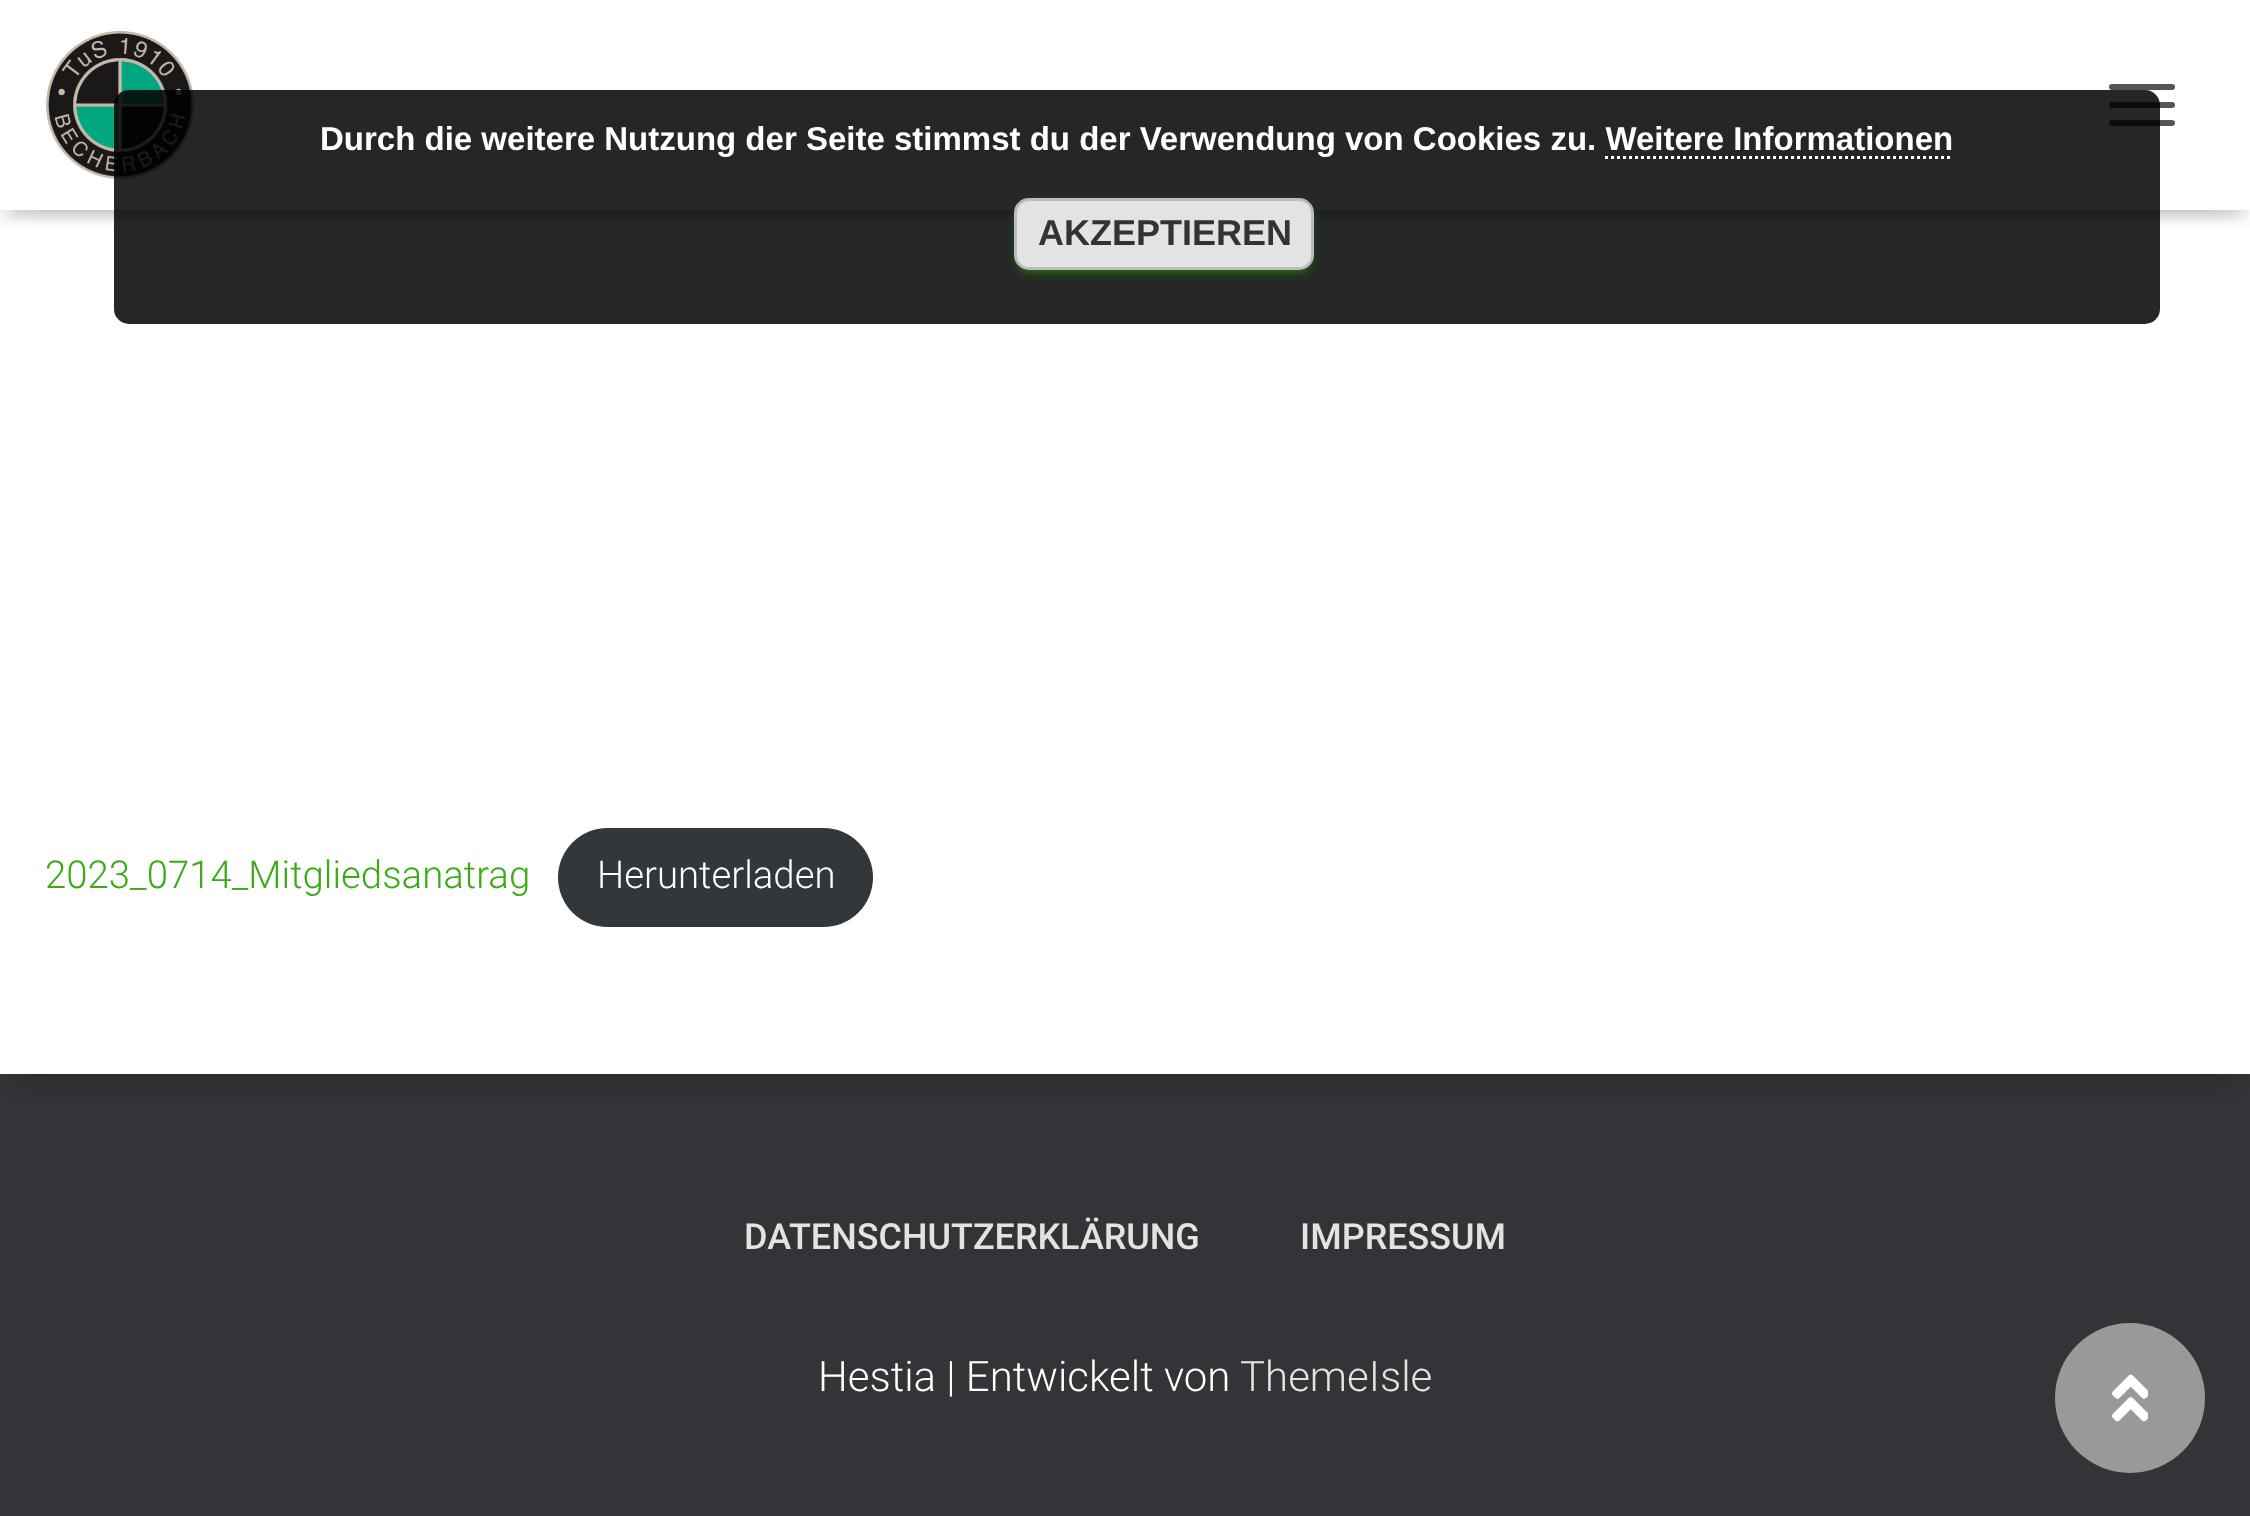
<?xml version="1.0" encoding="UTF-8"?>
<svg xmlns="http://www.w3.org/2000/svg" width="2250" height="1516">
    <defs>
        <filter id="blur1" x="-50%" y="-200%" width="200%" height="500%"><feGaussianBlur stdDeviation="15"/></filter>
        <clipPath id="clip1"><rect x="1" y="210" width="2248" height="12"/></clipPath>
        <filter id="blur2" x="-50%" y="-200%" width="200%" height="500%"><feGaussianBlur stdDeviation="7.5"/></filter>
        <clipPath id="clip2"><rect x="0" y="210" width="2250" height="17"/></clipPath>
        <clipPath id="clip3"><rect x="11" y="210" width="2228" height="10"/></clipPath>
        <filter id="blur3" x="-50%" y="-200%" width="200%" height="500%"><feGaussianBlur stdDeviation="1.5"/></filter>
        <filter id="blur4" x="-50%" y="-200%" width="200%" height="500%"><feGaussianBlur stdDeviation="3"/></filter>
    </defs>
    <rect width="100%" height="100%" fill="#323437"/>
    <rect x="15" y="-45" width="2220" height="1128" fill="#000000" fill-opacity="0.2" filter="url(#blur1)"/>
    <rect x="0" y="0" width="2250" height="1074" fill="#FFFFFF"/>
    <g clip-path="url(#clip1)">
        <rect x="6" y="18" width="2238" height="198" fill="#000000" fill-opacity="0.1" filter="url(#blur2)"/>
    </g>
    <g clip-path="url(#clip2)">
        <rect x="0" y="3" width="2250" height="210" fill="#000000" fill-opacity="0.12" filter="url(#blur1)"/>
    </g>
    <g clip-path="url(#clip3)">
        <rect x="18" y="21" width="2214" height="174" fill="#000000" fill-opacity="0.42" filter="url(#blur1)"/>
    </g>
    <image x="46" y="30" width="149" height="149" href="img_01.png"/>
    <rect x="2109" y="102" width="66" height="6" rx="3" fill="#555555"/>
    <rect x="2109" y="120" width="66" height="6" rx="3" fill="#555555"/>
    <rect x="114" y="90" width="2046" height="234" rx="15" fill="#000000" fill-opacity="0.85"/>
    <text x="320" y="150" font-family="Liberation Sans" font-size="33" font-weight="700" fill="#FFFFFF">Durch die weitere Nutzung der Seite stimmst du der Verwendung von Cookies zu. Weitere Informationen</text>
    <path d="M 1605 157.5 H 1953" fill="none" stroke="#FFFFFF" stroke-width="3" stroke-dasharray="3 3"/>
    <rect x="1014" y="201" width="300" height="72" rx="15" fill="#3BAA16" fill-opacity="0.12" filter="url(#blur2)"/>
    <rect x="1020" y="213" width="288" height="60" rx="9" fill="#3BAA16" fill-opacity="0.2" filter="url(#blur3)"/>
    <rect x="1014" y="204" width="300" height="72" rx="15" fill="#3BAA16" fill-opacity="0.14" filter="url(#blur4)"/>
    <rect x="1015.5" y="199.5" width="297" height="69" rx="13.5" fill="#E3E3E3" stroke="#BBBBBB" stroke-width="3"/>
    <text x="1038" y="245" font-family="Liberation Sans" font-size="36" font-weight="700" fill="#333333">AKZEPTIEREN</text>
    <rect x="2109" y="84" width="66" height="6" rx="3" fill="#555555"/>
    <text x="45" y="888" font-family="Roboto" font-size="38.4" font-weight="300" fill="#3BAA16">2023_0714_Mitgliedsanatrag</text>
    <rect x="558" y="828" width="315" height="99" rx="49.5" fill="#32373C"/>
    <text x="597" y="888" font-family="Roboto" font-size="38.4" font-weight="300" fill="#FFFFFF">Herunterladen</text>
    <text x="744" y="1249" font-family="Roboto" font-size="36" font-weight="500" fill="#E2E3E3">DATENSCHUTZERKLÄRUNG</text>
    <text x="1300" y="1249" font-family="Roboto" font-size="36" font-weight="500" fill="#E2E3E3">IMPRESSUM</text>
    <text x="818" y="1391" font-family="Roboto" font-size="42" font-weight="300" fill="#FFFFFF">Hestia | Entwickelt von</text>
    <text x="1240" y="1391" font-family="Roboto" font-size="42" font-weight="300" fill="#E2E3E3">ThemeIsle</text>
    <circle cx="2130" cy="1398" r="75" fill="#999999"/>
    <image x="2112" y="1374" width="36" height="48" href="img_02.png"/>
</svg>
